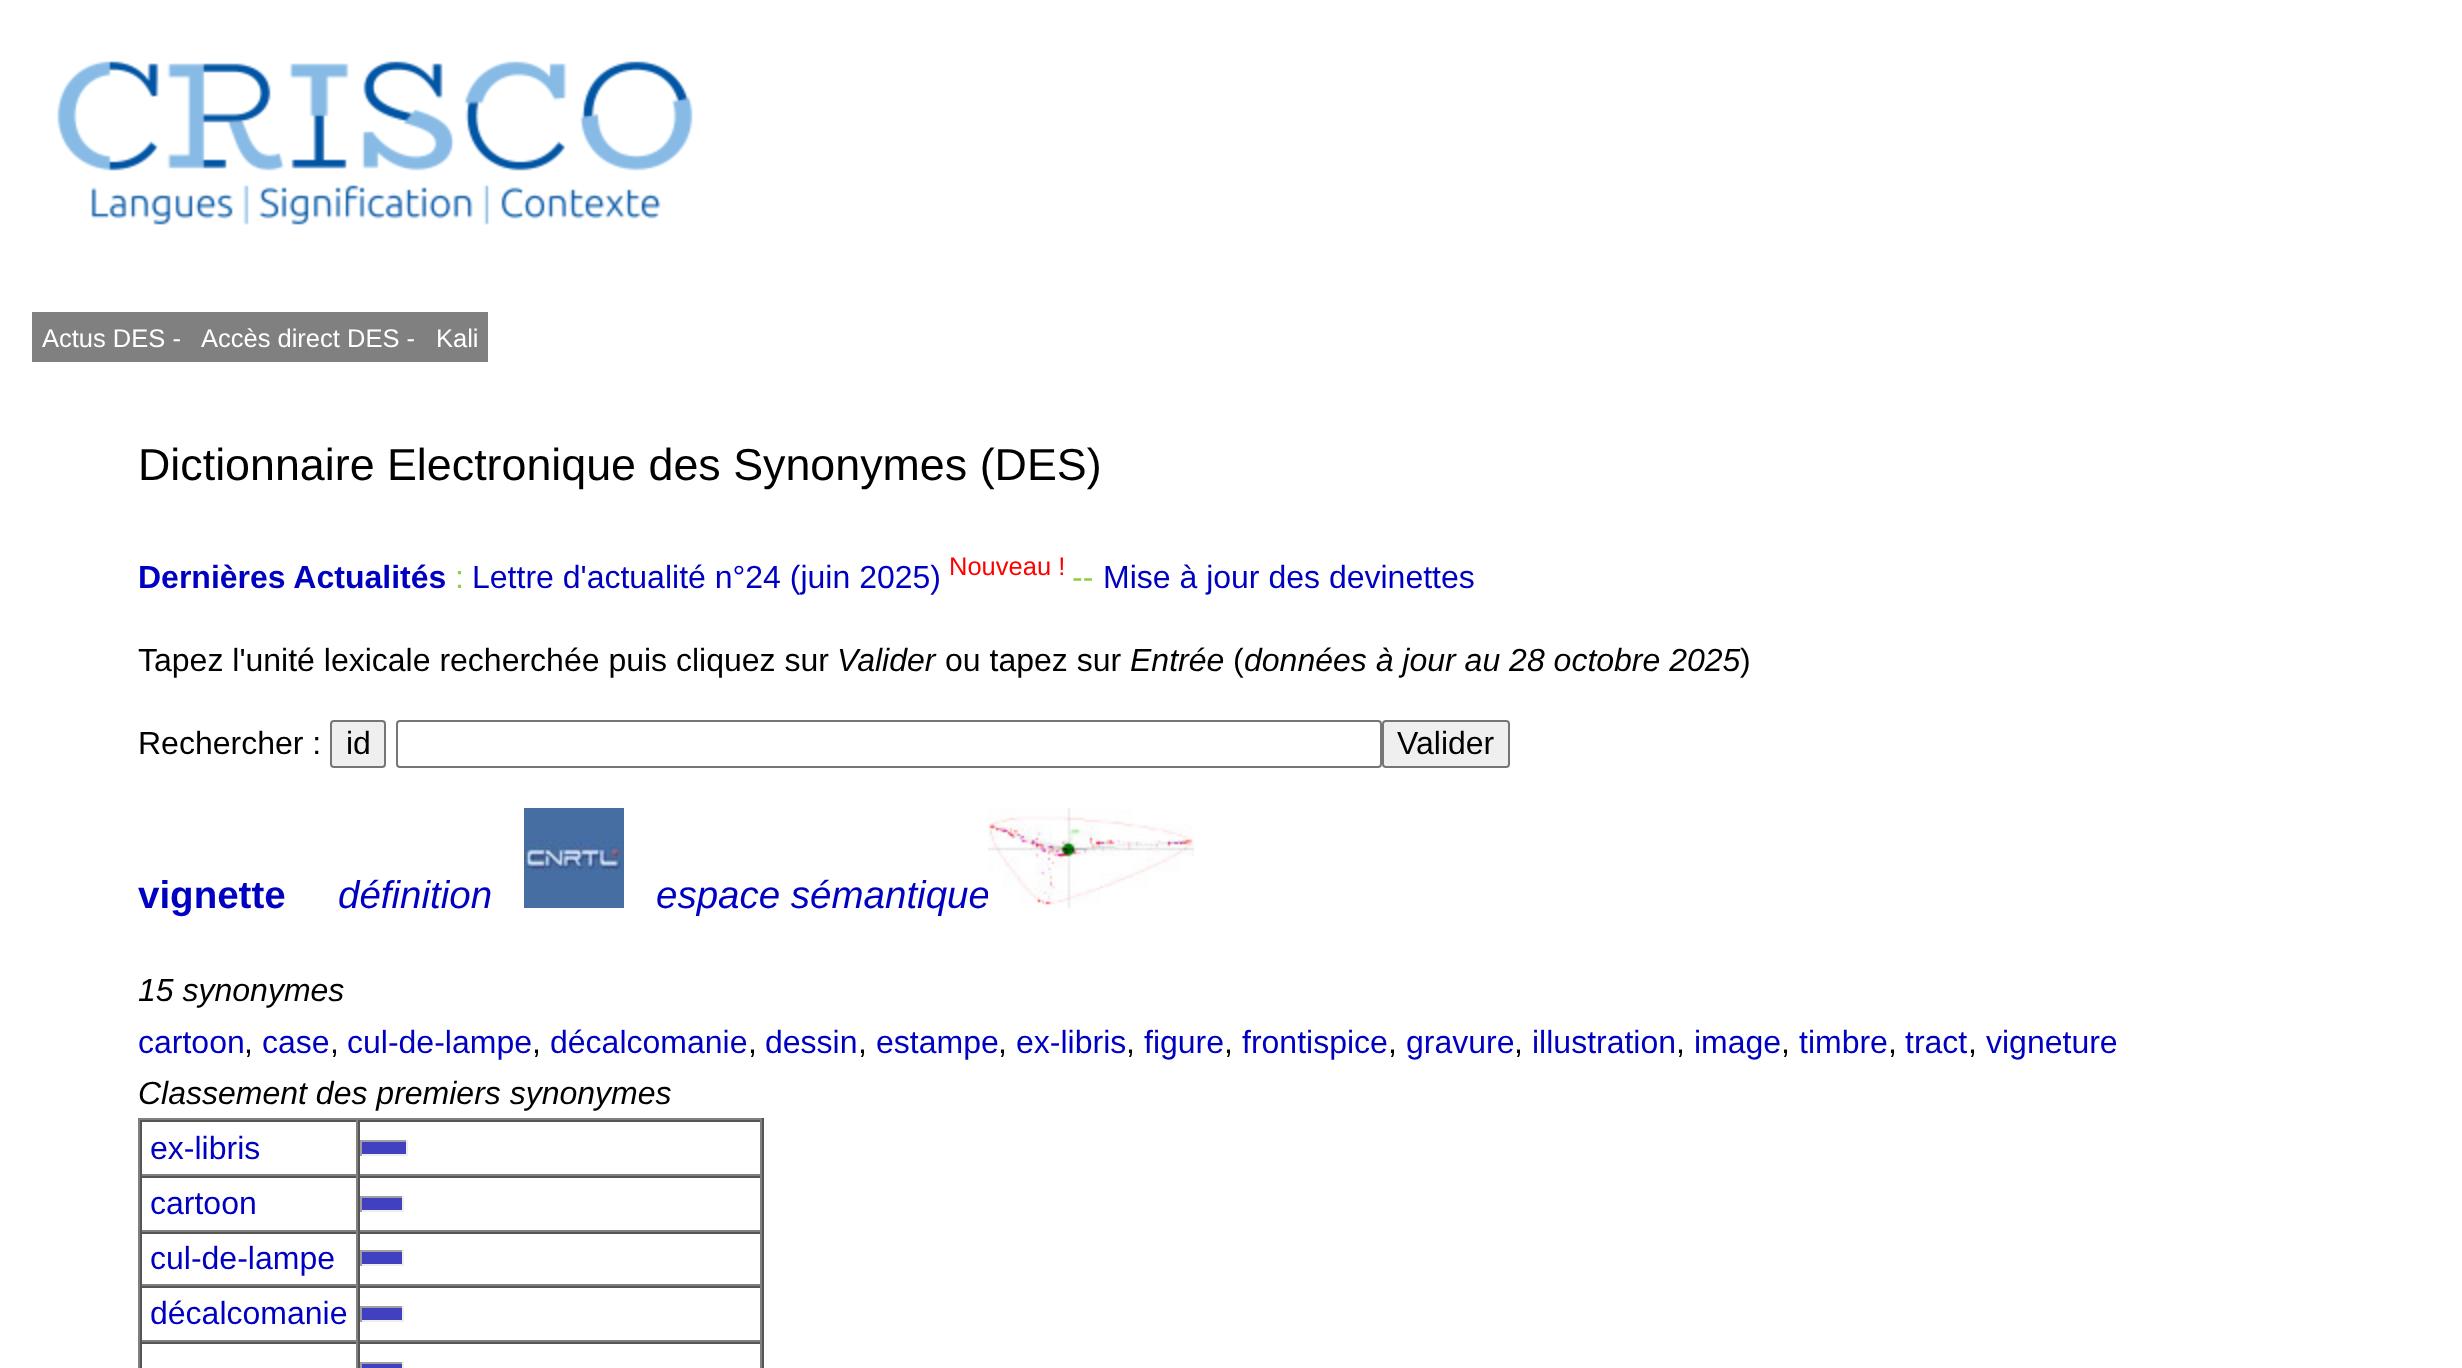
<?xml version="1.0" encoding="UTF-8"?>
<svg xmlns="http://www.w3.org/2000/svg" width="2462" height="1368">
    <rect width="100%" height="100%" fill="#FFFFFF"/>
    <image x="57" y="61" width="636" height="164" href="img_01.png"/>
    <rect x="32" y="312" width="456" height="50" fill="#808080"/>
    <text x="42" y="347" font-family="Liberation Sans" font-size="25.5" fill="#FFFFFF">Actus DES -</text>
    <text x="201" y="347" font-family="Liberation Sans" font-size="25.5" fill="#FFFFFF">Accès direct DES -</text>
    <text x="436" y="347" font-family="Liberation Sans" font-size="25.5" fill="#FFFFFF">Kali</text>
    <text x="138" y="480" font-family="Liberation Sans" font-size="44.8" fill="#000000">Dictionnaire Electronique des Synonymes (DES)</text>
    <text x="138" y="588" font-family="Liberation Sans" font-size="32" font-weight="700" fill="#0000C0">Dernières Actualités</text>
    <text x="455" y="588" font-family="Liberation Sans" font-size="32" fill="#8FCF3C">:</text>
    <text x="472" y="588" font-family="Liberation Sans" font-size="32" fill="#0000C0">Lettre d'actualité n°24 (juin 2025)</text>
    <text x="949" y="575" font-family="Liberation Sans" font-size="25.5" fill="#FF0000">Nouveau !</text>
    <text x="1072" y="588" font-family="Liberation Sans" font-size="32" fill="#8FCF3C">--</text>
    <text x="1103" y="588" font-family="Liberation Sans" font-size="32" fill="#0000C0">Mise à jour des devinettes</text>
    <text x="138" y="671" font-family="Liberation Sans" font-size="32" fill="#000000">Tapez l'unité lexicale recherchée puis cliquez sur</text>
    <text x="837" y="671" font-family="Liberation Sans" font-size="32" font-style="italic" fill="#000000">Valider</text>
    <text x="945" y="671" font-family="Liberation Sans" font-size="32" fill="#000000">ou tapez sur</text>
    <text x="1130" y="671" font-family="Liberation Sans" font-size="32" font-style="italic" fill="#000000">Entrée</text>
    <text x="1233" y="671" font-family="Liberation Sans" font-size="32" fill="#000000">(</text>
    <text x="1244" y="671" font-family="Liberation Sans" font-size="32" font-style="italic" fill="#000000">données à jour au 28 octobre 2025</text>
    <text x="1740" y="671" font-family="Liberation Sans" font-size="32" fill="#000000">)</text>
    <text x="138" y="754" font-family="Liberation Sans" font-size="32" fill="#000000">Rechercher :</text>
    <rect x="331" y="721" width="54" height="46" rx="3" fill="#EFEFEF" stroke="#767676" stroke-width="2"/>
    <text x="346" y="754" font-family="Liberation Sans" font-size="32" fill="#000000">id</text>
    <rect x="397" y="721" width="984" height="46" rx="3" fill="none" stroke="#767676" stroke-width="2"/>
    <rect x="1383" y="721" width="126" height="46" rx="3" fill="#EFEFEF" stroke="#767676" stroke-width="2"/>
    <text x="1397" y="754" font-family="Liberation Sans" font-size="32" fill="#000000">Valider</text>
    <text x="138" y="908" font-family="Liberation Sans" font-size="38.5" font-weight="700" fill="#0000C0">vignette</text>
    <text x="338" y="908" font-family="Liberation Sans" font-size="38.5" font-style="italic" fill="#0000C0">définition</text>
    <image x="524" y="808" width="100" height="100" href="img_02.png"/>
    <text x="656" y="908" font-family="Liberation Sans" font-size="38.5" font-style="italic" fill="#0000C0">espace sémantique</text>
    <image x="988" y="808" width="206" height="100" href="img_03.png"/>
    <text x="138" y="1001" font-family="Liberation Sans" font-size="32" font-style="italic" fill="#000000">15 synonymes</text>
    <text x="138" y="1053" font-family="Liberation Sans" font-size="32" fill="#0000C0">cartoon</text>
    <text x="244" y="1053" font-family="Liberation Sans" font-size="32" fill="#000000">,</text>
    <text x="262" y="1053" font-family="Liberation Sans" font-size="32" fill="#0000C0">case</text>
    <text x="330" y="1053" font-family="Liberation Sans" font-size="32" fill="#000000">,</text>
    <text x="347" y="1053" font-family="Liberation Sans" font-size="32" fill="#0000C0">cul-de-lampe</text>
    <text x="532" y="1053" font-family="Liberation Sans" font-size="32" fill="#000000">,</text>
    <text x="550" y="1053" font-family="Liberation Sans" font-size="32" fill="#0000C0">décalcomanie</text>
    <text x="748" y="1053" font-family="Liberation Sans" font-size="32" fill="#000000">,</text>
    <text x="765" y="1053" font-family="Liberation Sans" font-size="32" fill="#0000C0">dessin</text>
    <text x="858" y="1053" font-family="Liberation Sans" font-size="32" fill="#000000">,</text>
    <text x="876" y="1053" font-family="Liberation Sans" font-size="32" fill="#0000C0">estampe</text>
    <text x="998" y="1053" font-family="Liberation Sans" font-size="32" fill="#000000">,</text>
    <text x="1016" y="1053" font-family="Liberation Sans" font-size="32" fill="#0000C0">ex-libris</text>
    <text x="1126" y="1053" font-family="Liberation Sans" font-size="32" fill="#000000">,</text>
    <text x="1144" y="1053" font-family="Liberation Sans" font-size="32" fill="#0000C0">figure</text>
    <text x="1224" y="1053" font-family="Liberation Sans" font-size="32" fill="#000000">,</text>
    <text x="1242" y="1053" font-family="Liberation Sans" font-size="32" fill="#0000C0">frontispice</text>
    <text x="1388" y="1053" font-family="Liberation Sans" font-size="32" fill="#000000">,</text>
    <text x="1406" y="1053" font-family="Liberation Sans" font-size="32" fill="#0000C0">gravure</text>
    <text x="1514" y="1053" font-family="Liberation Sans" font-size="32" fill="#000000">,</text>
    <text x="1532" y="1053" font-family="Liberation Sans" font-size="32" fill="#0000C0">illustration</text>
    <text x="1676" y="1053" font-family="Liberation Sans" font-size="32" fill="#000000">,</text>
    <text x="1694" y="1053" font-family="Liberation Sans" font-size="32" fill="#0000C0">image</text>
    <text x="1781" y="1053" font-family="Liberation Sans" font-size="32" fill="#000000">,</text>
    <text x="1799" y="1053" font-family="Liberation Sans" font-size="32" fill="#0000C0">timbre</text>
    <text x="1888" y="1053" font-family="Liberation Sans" font-size="32" fill="#000000">,</text>
    <text x="1905" y="1053" font-family="Liberation Sans" font-size="32" fill="#0000C0">tract</text>
    <text x="1968" y="1053" font-family="Liberation Sans" font-size="32" fill="#000000">,</text>
    <text x="1986" y="1053" font-family="Liberation Sans" font-size="32" fill="#0000C0">vigneture</text>
    <text x="138" y="1104" font-family="Liberation Sans" font-size="32" font-style="italic" fill="#000000">Classement des premiers synonymes</text>
    <rect x="138" y="1118" width="626" height="2" fill="#808080"/>
    <rect x="762" y="1118" width="2" height="250" fill="#555555"/>
    <rect x="138" y="1118" width="2" height="250" fill="#808080"/>
    <rect x="140" y="1120" width="622" height="2" fill="#555555"/>
    <rect x="356" y="1120" width="2" height="56" fill="#808080"/>
    <rect x="140" y="1174" width="218" height="2" fill="#808080"/>
    <rect x="140" y="1120" width="2" height="56" fill="#555555"/>
    <text x="150" y="1159" font-family="Liberation Sans" font-size="32" fill="#0000C0">ex-libris</text>
    <rect x="760" y="1120" width="2" height="56" fill="#808080"/>
    <rect x="358" y="1174" width="404" height="2" fill="#808080"/>
    <rect x="358" y="1120" width="2" height="56" fill="#555555"/>
    <rect x="362" y="1142" width="44" height="12" fill="#4040C0"/>
    <rect x="360" y="1140" width="48" height="2" fill="#9F9F9F"/>
    <rect x="406" y="1140" width="2" height="16" fill="#EEEEEE"/>
    <rect x="360" y="1154" width="48" height="2" fill="#EEEEEE"/>
    <rect x="360" y="1140" width="2" height="16" fill="#9F9F9F"/>
    <rect x="140" y="1176" width="622" height="2" fill="#555555"/>
    <rect x="356" y="1176" width="2" height="56" fill="#808080"/>
    <rect x="140" y="1230" width="218" height="2" fill="#808080"/>
    <rect x="140" y="1176" width="2" height="56" fill="#555555"/>
    <text x="150" y="1214" font-family="Liberation Sans" font-size="32" fill="#0000C0">cartoon</text>
    <rect x="760" y="1176" width="2" height="56" fill="#808080"/>
    <rect x="358" y="1230" width="404" height="2" fill="#808080"/>
    <rect x="358" y="1176" width="2" height="56" fill="#555555"/>
    <rect x="362" y="1198" width="40" height="12" fill="#4040C0"/>
    <rect x="360" y="1196" width="44" height="2" fill="#9F9F9F"/>
    <rect x="402" y="1196" width="2" height="16" fill="#EEEEEE"/>
    <rect x="360" y="1210" width="44" height="2" fill="#EEEEEE"/>
    <rect x="360" y="1196" width="2" height="16" fill="#9F9F9F"/>
    <rect x="140" y="1232" width="622" height="2" fill="#555555"/>
    <rect x="356" y="1232" width="2" height="54" fill="#808080"/>
    <rect x="140" y="1284" width="218" height="2" fill="#808080"/>
    <rect x="140" y="1232" width="2" height="54" fill="#555555"/>
    <text x="150" y="1269" font-family="Liberation Sans" font-size="32" fill="#0000C0">cul-de-lampe</text>
    <rect x="760" y="1232" width="2" height="54" fill="#808080"/>
    <rect x="358" y="1284" width="404" height="2" fill="#808080"/>
    <rect x="358" y="1232" width="2" height="54" fill="#555555"/>
    <rect x="362" y="1252" width="40" height="12" fill="#4040C0"/>
    <rect x="360" y="1250" width="44" height="2" fill="#9F9F9F"/>
    <rect x="402" y="1250" width="2" height="16" fill="#EEEEEE"/>
    <rect x="360" y="1264" width="44" height="2" fill="#EEEEEE"/>
    <rect x="360" y="1250" width="2" height="16" fill="#9F9F9F"/>
    <rect x="140" y="1286" width="622" height="2" fill="#555555"/>
    <rect x="356" y="1286" width="2" height="56" fill="#808080"/>
    <rect x="140" y="1340" width="218" height="2" fill="#808080"/>
    <rect x="140" y="1286" width="2" height="56" fill="#555555"/>
    <text x="150" y="1324" font-family="Liberation Sans" font-size="32" fill="#0000C0">décalcomanie</text>
    <rect x="760" y="1286" width="2" height="56" fill="#808080"/>
    <rect x="358" y="1340" width="404" height="2" fill="#808080"/>
    <rect x="358" y="1286" width="2" height="56" fill="#555555"/>
    <rect x="362" y="1308" width="40" height="12" fill="#4040C0"/>
    <rect x="360" y="1306" width="44" height="2" fill="#9F9F9F"/>
    <rect x="402" y="1306" width="2" height="16" fill="#EEEEEE"/>
    <rect x="360" y="1320" width="44" height="2" fill="#EEEEEE"/>
    <rect x="360" y="1306" width="2" height="16" fill="#9F9F9F"/>
    <rect x="140" y="1342" width="622" height="2" fill="#555555"/>
    <rect x="356" y="1342" width="2" height="26" fill="#808080"/>
    <rect x="140" y="1342" width="2" height="26" fill="#555555"/>
    <rect x="760" y="1342" width="2" height="26" fill="#808080"/>
    <rect x="358" y="1342" width="2" height="26" fill="#555555"/>
    <rect x="360" y="1364" width="44" height="4" fill="#4040C0"/>
    <rect x="360" y="1362" width="44" height="2" fill="#9F9F9F"/>
    <rect x="402" y="1362" width="2" height="6" fill="#EEEEEE"/>
    <rect x="360" y="1362" width="2" height="6" fill="#9F9F9F"/>
</svg>
